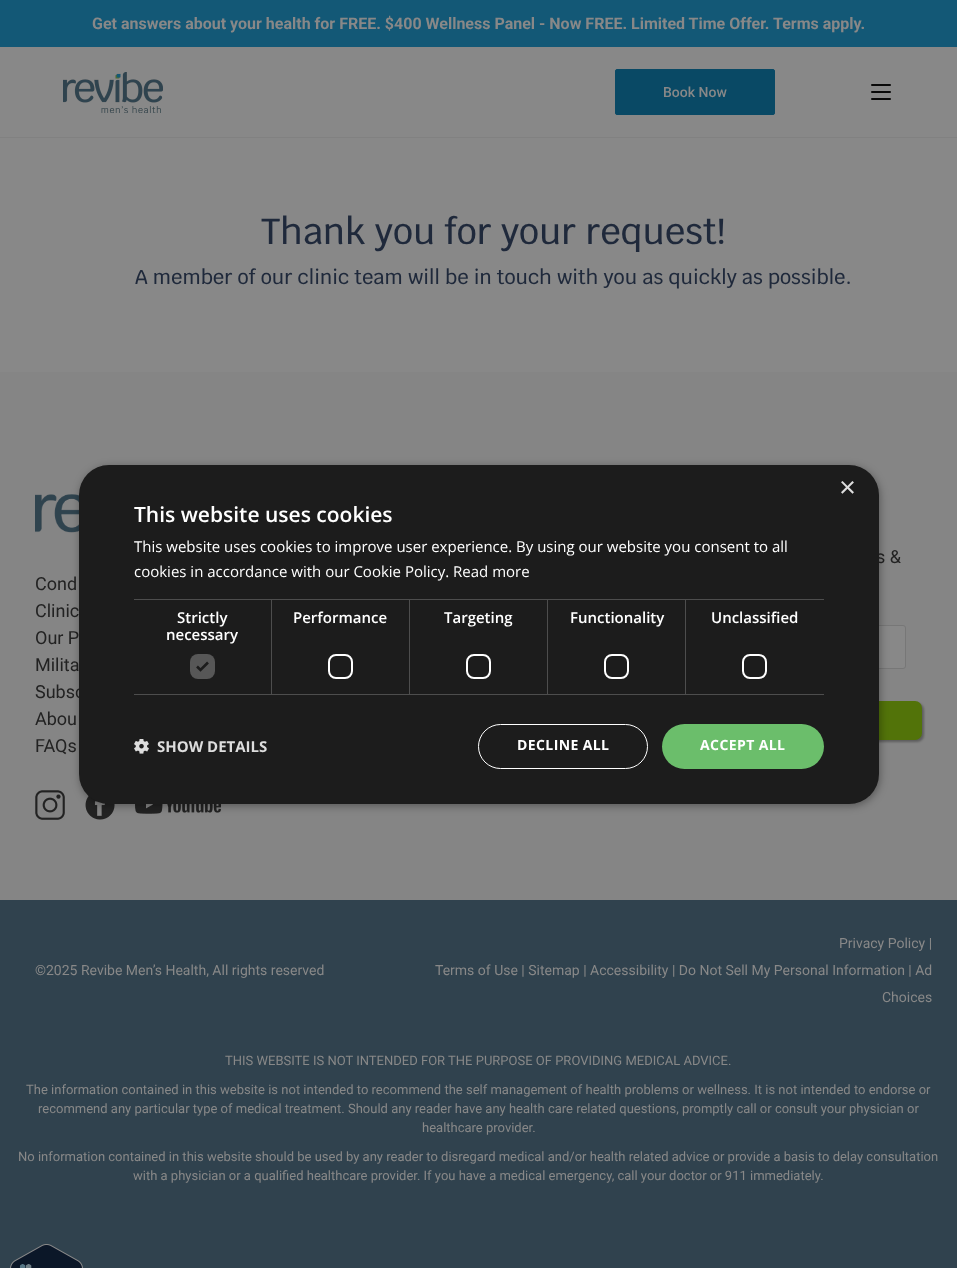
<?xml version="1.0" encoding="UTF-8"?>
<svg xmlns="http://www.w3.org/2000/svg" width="957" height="1268">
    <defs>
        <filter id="blur1" x="-50%" y="-200%" width="200%" height="500%"><feGaussianBlur stdDeviation="1"/></filter>
        <filter id="blur2" x="-50%" y="-200%" width="200%" height="500%"><feGaussianBlur stdDeviation="4"/></filter>
    </defs>
    <rect width="100%" height="100%" fill="#888888"/>
    <rect x="0" y="0" width="957" height="47" fill="#135876"/>
    <text x="92" y="29" font-family="Roboto" font-size="16" font-weight="700" fill="#888888">Get answers about your health for FREE. $400 Wellness Panel - Now FREE. Limited Time Offer. Terms apply.</text>
    <rect x="0" y="137" width="957" height="1" fill="#818181"/>
    <image x="63" y="72" width="100" height="41" href="img_01.png"/>
    <rect x="615.5" y="69.5" width="159" height="45" rx="1.5" fill="#094965" stroke="#094965"/>
    <text x="663" y="97" font-family="Roboto" font-size="14" font-weight="500" fill="#888888">Book Now</text>
    <rect x="871" y="98" width="20" height="2" rx="1" fill="#090909"/>
    <rect x="871" y="84" width="20" height="2" rx="1" fill="#090909"/>
    <rect x="871" y="91" width="20" height="2" rx="1" fill="#090909"/>
    <text x="261" y="244" font-family="Krub" font-size="36" font-weight="500" fill="#1F293B">Thank you for your request!</text>
    <text x="135" y="284" font-family="Krub" font-size="20" font-weight="500" fill="#1F293B">A member of our clinic team will be in touch with you as quickly as possible.</text>
    <rect x="0" y="372" width="957" height="528" fill="#858585"/>
    <text x="876" y="563" font-family="Roboto" font-size="18" fill="#222222">s &amp;</text>
    <rect x="640.5" y="625.5" width="265" height="43" rx="2.5" fill="#888888" stroke="#777777"/>
    <rect x="642" y="703" width="282" height="39" rx="7" fill="#090909" fill-opacity="0.3" filter="url(#blur1)"/>
    <rect x="640" y="701" width="282" height="39" rx="7" fill="#527309"/>
    <image x="35" y="494" width="44" height="39" href="img_02.png"/>
    <text font-family="Roboto" font-size="18" fill="#222222">
        <tspan x="35" y="590">Cond</tspan>
        <tspan x="35" y="617">Clinic</tspan>
        <tspan x="35" y="644">Our P</tspan>
        <tspan x="35" y="671">Milita</tspan>
        <tspan x="35" y="698">Subsc</tspan>
        <tspan x="35" y="725">Abou</tspan>
        <tspan x="35" y="752">FAQs</tspan>
    </text>
    <image x="35" y="790" width="30" height="30" href="img_03.png"/>
    <image x="85" y="795" width="30" height="25" href="img_04.png"/>
    <image x="135" y="804" width="86" height="10" href="img_05.png"/>
    <rect x="0" y="900" width="957" height="368" fill="#30424E"/>
    <text x="35" y="975" font-family="Roboto" font-size="14" fill="#888888">©2025 Revibe Men’s Health, All rights reserved</text>
    <text x="839" y="948" font-family="Roboto" font-size="14" fill="#888888">Privacy Policy |</text>
    <text x="435" y="975" font-family="Roboto" font-size="14" fill="#888888">Terms of Use | Sitemap | Accessibility | Do Not Sell My Personal Information | Ad</text>
    <text x="882" y="1002" font-family="Roboto" font-size="14" fill="#888888">Choices</text>
    <text x="225" y="1065" font-family="Roboto" font-size="13" fill="#888888">THIS WEBSITE IS NOT INTENDED FOR THE PURPOSE OF PROVIDING MEDICAL ADVICE.</text>
    <text x="26" y="1094" font-family="Roboto" font-size="13" fill="#888888">The information contained in this website is not intended to recommend the self management of health problems or wellness. It is not intended to endorse or</text>
    <text x="38" y="1113" font-family="Roboto" font-size="13" fill="#888888">recommend any particular type of medical treatment. Should any reader have any health care related questions, promptly call or consult your physician or</text>
    <text x="422" y="1132" font-family="Roboto" font-size="13" fill="#888888">healthcare provider.</text>
    <text x="18" y="1161" font-family="Roboto" font-size="13" fill="#888888">No information contained in this website should be used by any reader to disregard medical and/or health related advice or provide a basis to delay consultation</text>
    <text x="133" y="1180" font-family="Roboto" font-size="13" fill="#888888">with a physician or a qualified healthcare provider. If you have a medical emergency, call your doctor or 911 immediately.</text>
    <image x="10" y="1244" width="73" height="24" href="img_06.png"/>
    <rect x="80" y="467" width="800" height="339" rx="30" fill="#000000" fill-opacity="0.35" filter="url(#blur2)"/>
    <rect x="79" y="465" width="800" height="339" rx="30" fill="#1C1C1C"/>
    <text x="839" y="497" font-family="Liberation Sans" font-size="29" fill="#DDDDDD">×</text>
    <text x="134" y="522" font-family="Open Sans" font-size="21" font-weight="600" fill="#FFFFFF">This website uses cookies</text>
    <text font-family="Open Sans" font-size="15" fill="#FFFFFF">
        <tspan x="134" y="552">This website uses cookies to improve user experience. By using our website you consent to all</tspan>
        <tspan x="134" y="577">cookies in accordance with our Cookie Policy. Read more</tspan>
    </text>
    <rect x="134" y="599" width="690" height="1" fill="#4D4D4D"/>
    <rect x="271" y="599" width="1" height="96" fill="#4D4D4D"/>
    <rect x="134" y="694" width="138" height="1" fill="#4D4D4D"/>
    <text x="177" y="623" font-family="Open Sans" font-size="15" font-weight="600" fill="#FFFFFF">Strictly</text>
    <text x="166" y="640" font-family="Open Sans" font-size="15" font-weight="600" fill="#FFFFFF">necessary</text>
    <rect x="190" y="654" width="25" height="25" rx="8" fill="#575757"/>
    <path d="M 197 666.5 L 200.5 670 L 208 662.5" fill="none" stroke="#1C1C1C" stroke-width="2.6"/>
    <rect x="409" y="599" width="1" height="96" fill="#4D4D4D"/>
    <rect x="272" y="694" width="138" height="1" fill="#4D4D4D"/>
    <text x="293" y="623" font-family="Open Sans" font-size="15" font-weight="600" fill="#FFFFFF">Performance</text>
    <rect x="329" y="655" width="23" height="23" rx="7" fill="none" stroke="#FFFFFF" stroke-width="2"/>
    <rect x="547" y="599" width="1" height="96" fill="#4D4D4D"/>
    <rect x="410" y="694" width="138" height="1" fill="#4D4D4D"/>
    <text x="444" y="623" font-family="Open Sans" font-size="15" font-weight="600" fill="#FFFFFF">Targeting</text>
    <rect x="467" y="655" width="23" height="23" rx="7" fill="none" stroke="#FFFFFF" stroke-width="2"/>
    <rect x="685" y="599" width="1" height="96" fill="#4D4D4D"/>
    <rect x="548" y="694" width="276" height="1" fill="#4D4D4D"/>
    <text x="570" y="623" font-family="Open Sans" font-size="15" font-weight="600" fill="#FFFFFF">Functionality</text>
    <rect x="605" y="655" width="23" height="23" rx="7" fill="none" stroke="#FFFFFF" stroke-width="2"/>
    <text x="711" y="623" font-family="Open Sans" font-size="15" font-weight="600" fill="#FFFFFF">Unclassified</text>
    <rect x="743" y="655" width="23" height="23" rx="7" fill="none" stroke="#FFFFFF" stroke-width="2"/>
    <image x="134" y="739" width="15" height="15" href="img_07.png"/>
    <text x="157" y="752" font-family="Open Sans" font-size="15" font-weight="700" fill="#DDDDDD">SHOW DETAILS</text>
    <rect x="478.5" y="724.5" width="169" height="44" rx="22" fill="none" stroke="#FFFFFF"/>
    <text x="517" y="750" font-family="Open Sans" font-size="14" font-weight="700" letter-spacing="0.4" fill="#FFFFFF">DECLINE ALL</text>
    <rect x="662" y="724" width="162" height="45" rx="22.5" fill="#6BBE6B"/>
    <text x="700" y="750" font-family="Open Sans" font-size="14" font-weight="700" letter-spacing="0.4" fill="#FFFFFF">ACCEPT ALL</text>
</svg>
